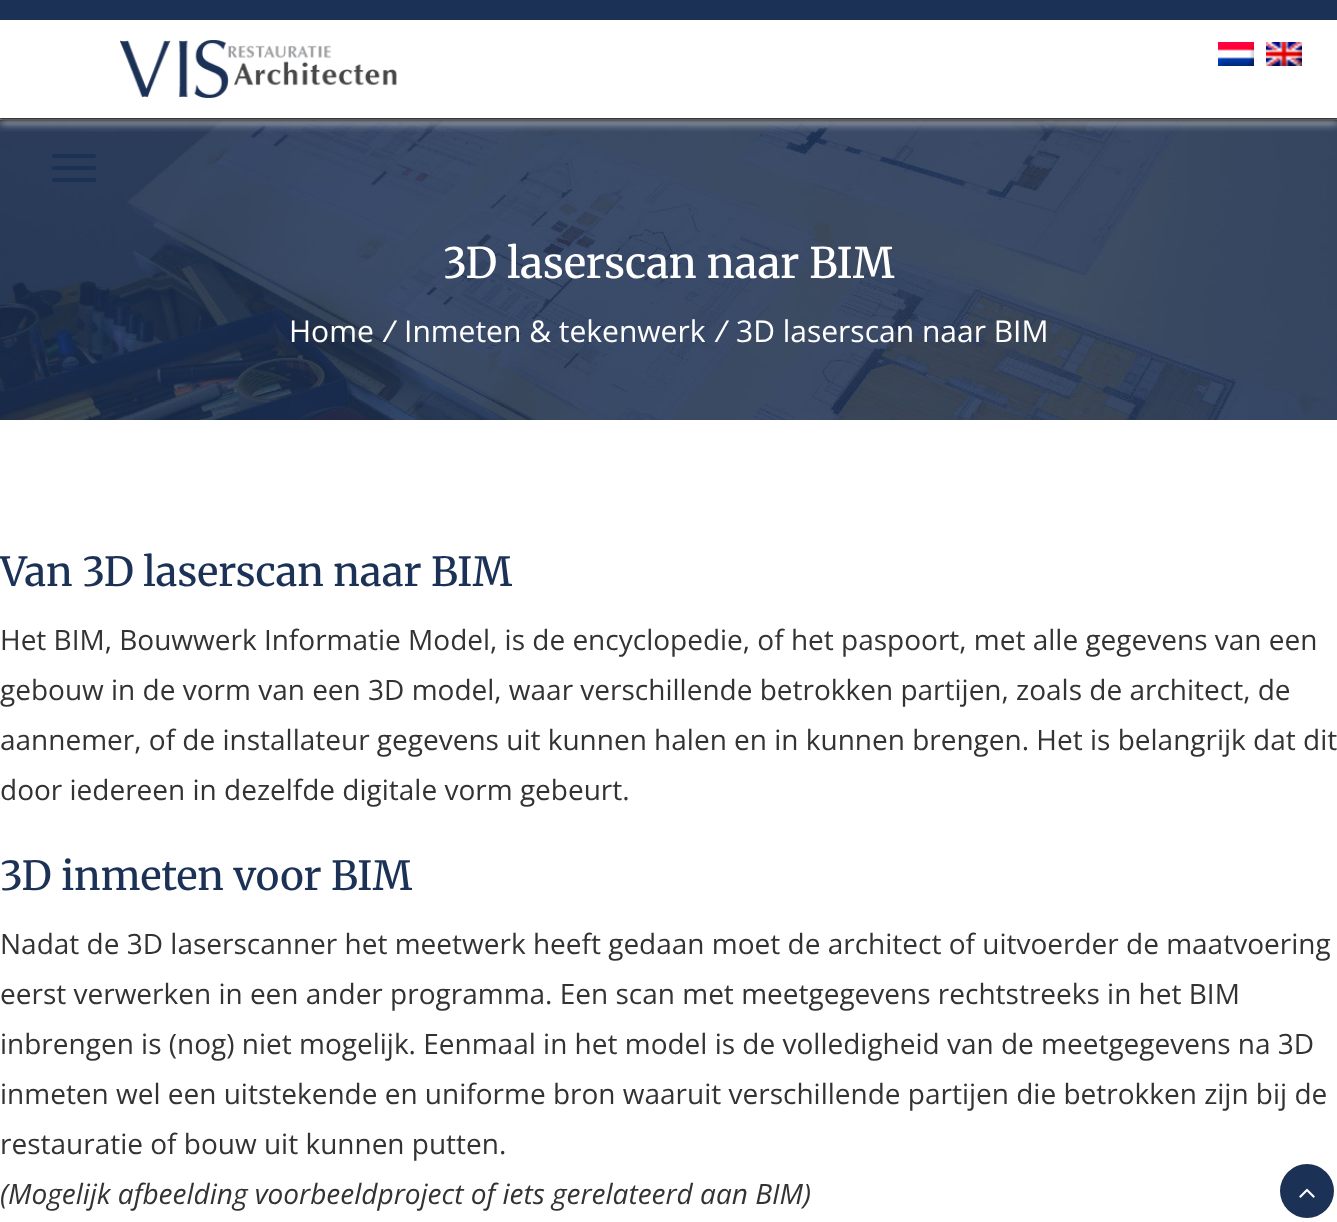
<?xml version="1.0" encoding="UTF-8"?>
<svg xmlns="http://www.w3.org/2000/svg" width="1337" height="1222">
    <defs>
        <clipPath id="clip1"><rect x="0" y="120" width="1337" height="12"/></clipPath>
        <filter id="blur1" x="-50%" y="-200%" width="200%" height="500%"><feGaussianBlur stdDeviation="4"/></filter>
        <clipPath id="clip2"><rect x="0" y="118" width="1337" height="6"/></clipPath>
        <filter id="blur2" x="-50%" y="-200%" width="200%" height="500%"><feGaussianBlur stdDeviation="2"/></filter>
    </defs>
    <rect width="100%" height="100%" fill="#FFFFFF"/>
    <image x="0" y="120" width="1337" height="300" href="img_04.png"/>
    <g clip-path="url(#clip1)">
        <rect x="0" y="4" width="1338" height="120" fill="#DDDDDD" fill-opacity="0.7" filter="url(#blur1)"/>
    </g>
    <rect x="0" y="118" width="1337" height="2" fill="#DDDDDD"/>
    <g clip-path="url(#clip2)">
        <rect x="-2" y="-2" width="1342" height="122" fill="#000000" filter="url(#blur2)"/>
    </g>
    <rect x="0" y="0" width="1337" height="20" fill="#1B3156"/>
    <image x="120" y="40" width="277" height="58" href="img_01.png"/>
    <image x="1218" y="42" width="36" height="24" href="img_02.png"/>
    <image x="1266" y="42" width="36" height="24" href="img_03.png"/>
    <rect x="52" y="154" width="44" height="4" rx="2" fill="#1B3156"/>
    <rect x="52" y="166" width="44" height="4" rx="2" fill="#1B3156"/>
    <rect x="52" y="178" width="44" height="4" rx="2" fill="#1B3156"/>
    <text x="443" y="278" font-family="Merriweather" font-size="42" font-weight="500" fill="#FFFFFF">3D laserscan naar BIM</text>
    <text x="289" y="342" font-family="Open Sans" font-size="30" fill="#FFFFFF">Home</text>
    <text x="384" y="342" font-family="Open Sans" font-size="30" font-style="italic" fill="#FFFFFF">/</text>
    <text x="404" y="342" font-family="Open Sans" font-size="30" fill="#FFFFFF">Inmeten &amp; tekenwerk</text>
    <text x="716" y="342" font-family="Open Sans" font-size="30" font-style="italic" fill="#FFFFFF">/</text>
    <text x="736" y="342" font-family="Open Sans" font-size="30" fill="#FFFFFF">3D laserscan naar BIM</text>
    <text x="0" y="586" font-family="Merriweather" font-size="40" font-weight="500" fill="#1B3156">Van 3D laserscan naar BIM</text>
    <text font-family="Open Sans" font-size="28" fill="#333333">
        <tspan x="0" y="650">Het BIM, Bouwwerk Informatie Model, is de encyclopedie, of het paspoort, met alle gegevens van een</tspan>
        <tspan x="0" y="700">gebouw in de vorm van een 3D model, waar verschillende betrokken partijen, zoals de architect, de</tspan>
        <tspan x="0" y="750">aannemer, of de installateur gegevens uit kunnen halen en in kunnen brengen. Het is belangrijk dat dit</tspan>
        <tspan x="0" y="800">door iedereen in dezelfde digitale vorm gebeurt.</tspan>
    </text>
    <text x="0" y="890" font-family="Merriweather" font-size="40" font-weight="500" fill="#1B3156">3D inmeten voor BIM</text>
    <text font-family="Open Sans" font-size="28" fill="#333333">
        <tspan x="0" y="954">Nadat de 3D laserscanner het meetwerk heeft gedaan moet de architect of uitvoerder de maatvoering</tspan>
        <tspan x="0" y="1004">eerst verwerken in een ander programma. Een scan met meetgegevens rechtstreeks in het BIM</tspan>
        <tspan x="0" y="1054">inbrengen is (nog) niet mogelijk. Eenmaal in het model is de volledigheid van de meetgegevens na 3D</tspan>
        <tspan x="0" y="1104">inmeten wel een uitstekende en uniforme bron waaruit verschillende partijen die betrokken zijn bij de</tspan>
        <tspan x="0" y="1154">restauratie of bouw uit kunnen putten.</tspan>
    </text>
    <text x="0" y="1204" font-family="Open Sans" font-size="28" font-style="italic" fill="#333333">(Mogelijk afbeelding voorbeeldproject of iets gerelateerd aan BIM)</text>
    <circle cx="1307" cy="1191" r="27" fill="#1B3156"/>
    <image x="1299" y="1188" width="16" height="10" href="img_05.png"/>
</svg>
